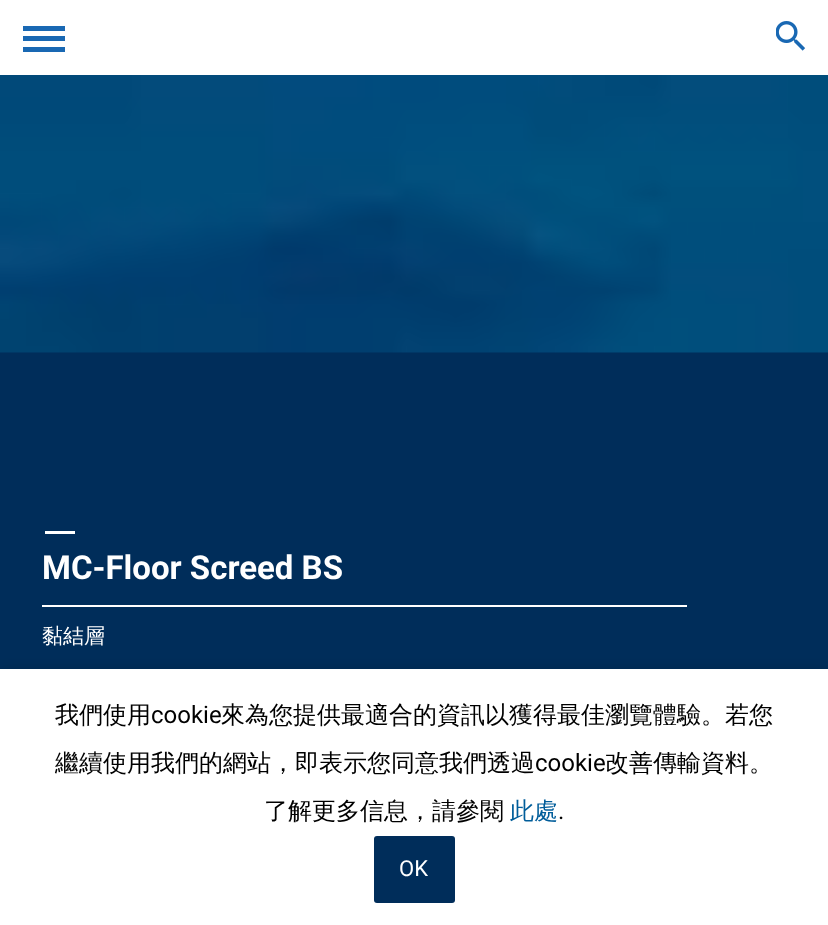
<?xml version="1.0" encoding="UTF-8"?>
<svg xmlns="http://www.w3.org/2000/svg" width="828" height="925">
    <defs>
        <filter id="blur1" x="-50%" y="-200%" width="200%" height="500%"><feGaussianBlur stdDeviation="7.5"/></filter>
    </defs>
    <rect width="100%" height="100%" fill="#002D5A"/>
    <rect x="0" y="0" width="828" height="75" fill="#FFFFFF"/>
    <rect x="23" y="26" width="42" height="5" fill="#1968B3"/>
    <rect x="23" y="36" width="42" height="5" fill="#1968B3"/>
    <rect x="23" y="47" width="42" height="5" fill="#1968B3"/>
    <image x="776" y="21" width="30" height="30" href="img_01.png"/>
    <image x="0" y="75" width="828" height="278" href="img_02.png"/>
    <rect x="45" y="531" width="30" height="3" fill="#FFFFFF"/>
    <text x="42" y="579" font-family="Roboto" font-size="33" font-weight="700" fill="#FFFFFF">MC-Floor Screed BS</text>
    <rect x="42" y="605" width="645" height="2" fill="#FFFFFF"/>
    <text x="42" y="643" font-family="WenQuanYi Zen Hei" font-size="21" font-weight="500" fill="#FFFFFF">黏結層</text>
    <rect x="0" y="671" width="828" height="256" fill="#000000" fill-opacity="0.2" filter="url(#blur1)"/>
    <rect x="0" y="669" width="828" height="256" fill="#FFFFFF"/>
    <text x="55" y="723" font-family="WenQuanYi Zen Hei" font-size="24" font-weight="500" fill="#000000">我們使用</text>
    <text x="151" y="723" font-family="Roboto" font-size="24" fill="#000000">cookie</text>
    <text x="221" y="723" font-family="WenQuanYi Zen Hei" font-size="24" font-weight="500" fill="#000000">來為您提供最適合的資訊以獲得最佳瀏覽體驗。若您</text>
    <text x="55" y="771" font-family="WenQuanYi Zen Hei" font-size="24" font-weight="500" fill="#000000">繼續使用我們的網站，即表示您同意我們透過</text>
    <text x="535" y="771" font-family="Roboto" font-size="24" fill="#000000">cookie</text>
    <text x="605" y="771" font-family="WenQuanYi Zen Hei" font-size="24" font-weight="500" fill="#000000">改善傳輸資料。</text>
    <text x="264" y="819" font-family="WenQuanYi Zen Hei" font-size="24" font-weight="500" fill="#000000">了解更多信息，請參閱</text>
    <text x="510" y="819" font-family="WenQuanYi Zen Hei" font-size="24" font-weight="500" fill="#005D9A">此處</text>
    <text x="558" y="819" font-family="Roboto" font-size="24" fill="#000000">.</text>
    <rect x="374" y="836" width="81" height="67" rx="3" fill="#002D5A"/>
    <text x="399" y="876" font-family="Roboto" font-size="22" fill="#FFFFFF">OK</text>
</svg>
